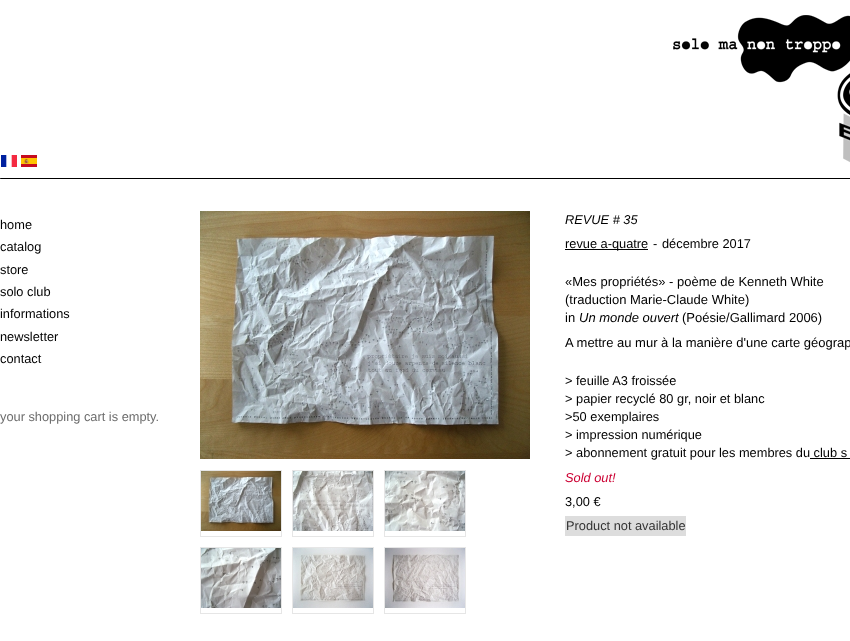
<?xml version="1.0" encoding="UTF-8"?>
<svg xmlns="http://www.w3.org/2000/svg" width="850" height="641">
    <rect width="100%" height="100%" fill="#FFFFFF"/>
    <image x="0" y="15" width="850" height="164" href="img_01.png"/>
    <image x="1" y="155" width="16" height="12" href="img_02.png"/>
    <image x="21" y="155" width="16" height="12" href="img_03.png"/>
    <text font-family="Liberation Sans" font-size="12.8" fill="#000000">
        <tspan x="0" y="229">home</tspan>
        <tspan x="0" y="251">catalog</tspan>
        <tspan x="0" y="274">store</tspan>
        <tspan x="0" y="296">solo club</tspan>
        <tspan x="0" y="318">informations</tspan>
        <tspan x="0" y="341">newsletter</tspan>
        <tspan x="0" y="363">contact</tspan>
    </text>
    <text x="0" y="421" font-family="Liberation Sans" font-size="12.8" fill="#6C6C6C">your shopping cart is empty.</text>
    <image x="200" y="211" width="330" height="248" href="img_04.png"/>
    <rect x="200.5" y="470.5" width="81" height="66" fill="none" stroke="#E6E6E6"/>
    <image x="201" y="471" width="80" height="60" href="img_05.png"/>
    <rect x="292.5" y="470.5" width="81" height="66" fill="none" stroke="#E6E6E6"/>
    <image x="293" y="471" width="80" height="60" href="img_06.png"/>
    <rect x="384.5" y="470.5" width="81" height="66" fill="none" stroke="#E6E6E6"/>
    <image x="385" y="471" width="80" height="60" href="img_07.png"/>
    <rect x="200.5" y="547.5" width="81" height="66" fill="none" stroke="#E6E6E6"/>
    <image x="201" y="548" width="80" height="60" href="img_08.png"/>
    <rect x="292.5" y="547.5" width="81" height="66" fill="none" stroke="#E6E6E6"/>
    <image x="293" y="548" width="80" height="60" href="img_09.png"/>
    <rect x="384.5" y="547.5" width="81" height="66" fill="none" stroke="#E6E6E6"/>
    <image x="385" y="548" width="80" height="60" href="img_10.png"/>
    <text x="565" y="224" font-family="Liberation Sans" font-size="12.8" font-style="italic" fill="#000000">REVUE # 35</text>
    <rect x="565" y="249" width="83" height="1" fill="#000000"/>
    <text x="565" y="248" font-family="Liberation Sans" font-size="12.8" fill="#000000">revue a-quatre</text>
    <text x="653" y="248" font-family="Liberation Sans" font-size="12.8" fill="#000000">-</text>
    <text x="662" y="248" font-family="Liberation Sans" font-size="12.8" fill="#000000">décembre 2017</text>
    <text font-family="Liberation Sans" font-size="13" fill="#000000">
        <tspan x="565" y="286">«Mes propriétés» - poème de Kenneth White</tspan>
        <tspan x="565" y="304">(traduction Marie-Claude White)</tspan>
        <tspan x="565" y="322">in</tspan>
    </text>
    <text x="579" y="322" font-family="Liberation Sans" font-size="13" font-style="italic" fill="#000000">Un monde ouvert</text>
    <text x="682" y="322" font-family="Liberation Sans" font-size="13" fill="#000000">(Poésie/Gallimard 2006)</text>
    <text x="565" y="347" font-family="Liberation Sans" font-size="13" fill="#000000">A mettre au mur à la manière d'une carte géograp</text>
    <text font-family="Liberation Sans" font-size="12.8" fill="#000000">
        <tspan x="565" y="385">&gt; feuille A3 froissée</tspan>
        <tspan x="565" y="403">&gt; papier recyclé 80 gr, noir et blanc</tspan>
        <tspan x="565" y="421">&gt;50 exemplaires</tspan>
        <tspan x="565" y="439">&gt; impression numérique</tspan>
        <tspan x="565" y="457">&gt; abonnement gratuit pour les membres du club s</tspan>
    </text>
    <rect x="810" y="458" width="40" height="1" fill="#000000"/>
    <text x="565" y="482" font-family="Liberation Sans" font-size="12.8" font-style="italic" fill="#CC0033">Sold out!</text>
    <text x="565" y="506" font-family="Liberation Sans" font-size="12.8" fill="#000000">3,00 €</text>
    <rect x="565" y="516" width="121" height="20" fill="#DDDDDD"/>
    <text x="566" y="530" font-family="Liberation Sans" font-size="12.8" fill="#333333">Product not available</text>
</svg>
